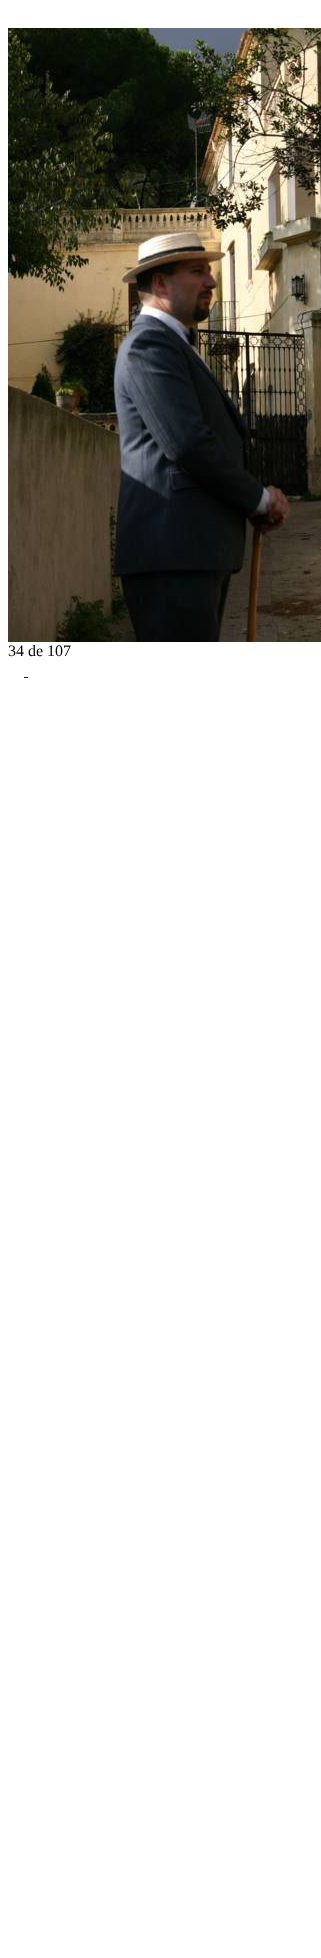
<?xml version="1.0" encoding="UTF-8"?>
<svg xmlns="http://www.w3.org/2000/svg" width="321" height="1958">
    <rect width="100%" height="100%" fill="#FFFFFF"/>
    <image x="8" y="28" width="313" height="614" href="img_01.png"/>
    <text x="8" y="656" font-family="Liberation Serif" font-size="16" fill="#000000">34 de 107</text>
    <rect x="24" y="677" width="4" height="1" fill="#0000EE"/>
</svg>
